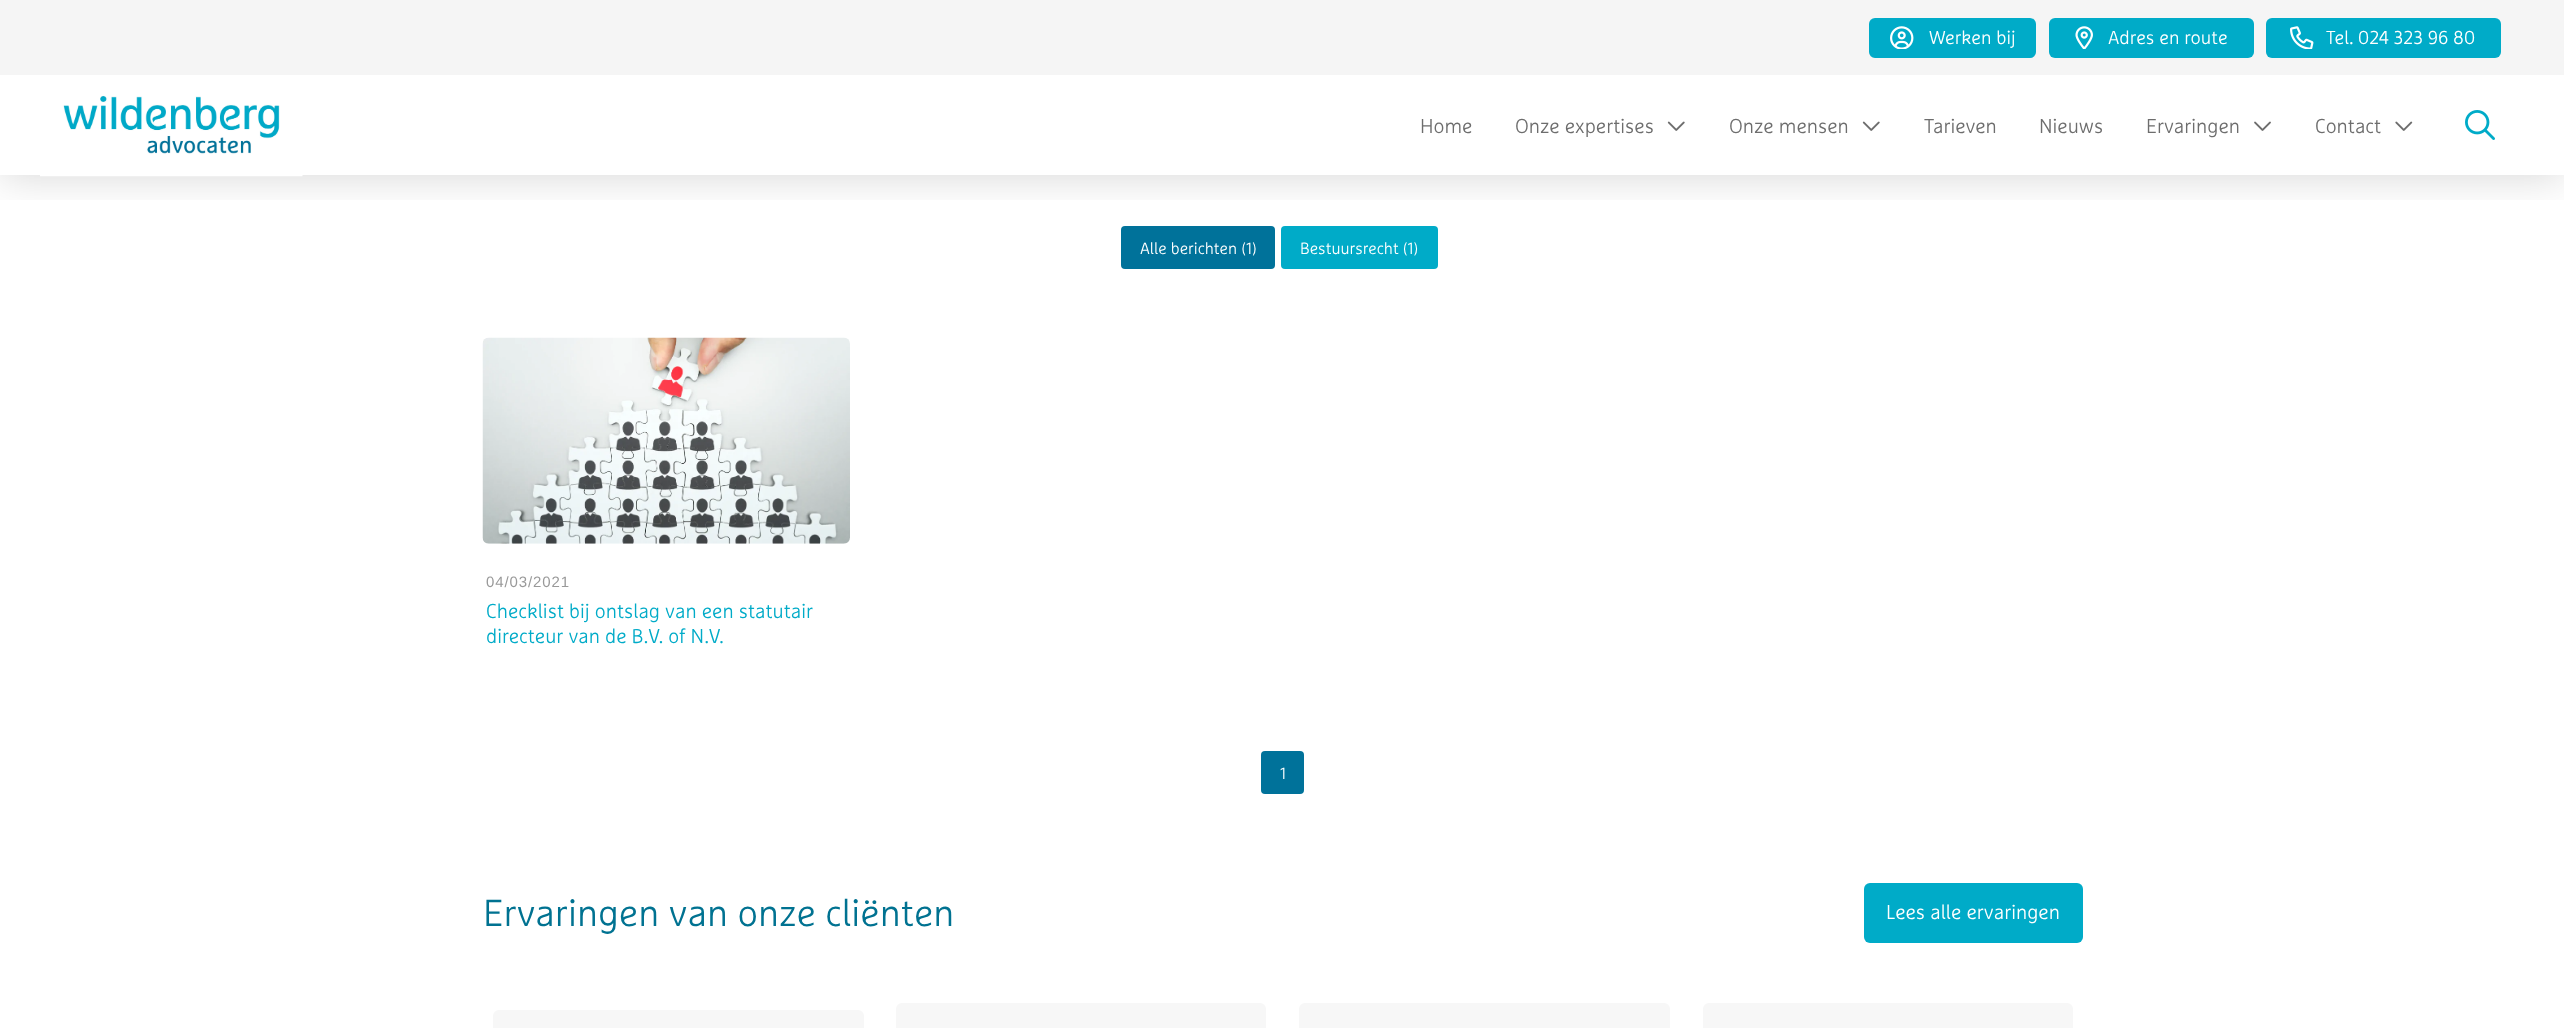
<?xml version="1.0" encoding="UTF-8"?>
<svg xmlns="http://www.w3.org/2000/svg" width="2564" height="1028">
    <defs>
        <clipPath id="clip1"><rect x="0" y="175" width="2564" height="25"/></clipPath>
        <filter id="blur1" x="-50%" y="-200%" width="200%" height="500%"><feGaussianBlur stdDeviation="20"/></filter>
    </defs>
    <rect width="100%" height="100%" fill="#FFFFFF"/>
    <rect x="1121" y="226" width="154" height="43" rx="4" fill="#00729A"/>
    <rect x="1281" y="226" width="157" height="43" rx="4" fill="#00ABC8"/>
    <g clip-path="url(#clip1)">
        <rect x="0" y="78" width="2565" height="100" fill="#000000" fill-opacity="0.15" filter="url(#blur1)"/>
    </g>
    <rect x="0" y="0" width="2564" height="75" fill="#F5F5F5"/>
    <rect x="1869" y="18" width="167" height="40" rx="6" fill="#00ABC8"/>
    <image x="1890" y="26" width="24" height="23" href="img_01.png"/>
    <text x="1929" y="44" font-family="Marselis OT" font-size="18.75" font-weight="300" fill="#FFFFFF">Werken bij</text>
    <rect x="2049" y="18" width="205" height="40" rx="6" fill="#00ABC8"/>
    <image x="2075" y="26" width="18" height="23" href="img_02.png"/>
    <text x="2108" y="44" font-family="Marselis OT" font-size="18.75" font-weight="300" fill="#FFFFFF">Adres en route</text>
    <rect x="2266" y="18" width="235" height="40" rx="6" fill="#00ABC8"/>
    <image x="2290" y="26" width="24" height="23" href="img_03.png"/>
    <text x="2326" y="44" font-family="Marselis OT" font-size="18.75" font-weight="300" fill="#FFFFFF">Tel. 024 323 96 80</text>
    <image x="40" y="75" width="263" height="102" href="img_04.png"/>
    <text x="1420" y="133" font-family="Marselis OT" font-size="20" font-weight="300" fill="#6D6D6D">Home</text>
    <text x="1515" y="133" font-family="Marselis OT" font-size="20" font-weight="300" fill="#6D6D6D">Onze expertises</text>
    <image x="1667" y="121" width="18" height="10" href="img_05.png"/>
    <text x="1729" y="133" font-family="Marselis OT" font-size="20" font-weight="300" fill="#6D6D6D">Onze mensen</text>
    <image x="1862" y="121" width="18" height="10" href="img_05.png"/>
    <text x="1924" y="133" font-family="Marselis OT" font-size="20" font-weight="300" fill="#6D6D6D">Tarieven</text>
    <text x="2039" y="133" font-family="Marselis OT" font-size="20" font-weight="300" fill="#6D6D6D">Nieuws</text>
    <text x="2146" y="133" font-family="Marselis OT" font-size="20" font-weight="300" fill="#6D6D6D">Ervaringen</text>
    <image x="2254" y="121" width="17" height="10" href="img_06.png"/>
    <text x="2315" y="133" font-family="Marselis OT" font-size="20" font-weight="300" fill="#6D6D6D">Contact</text>
    <image x="2395" y="121" width="18" height="10" href="img_07.png"/>
    <image x="2465" y="110" width="30" height="30" href="img_08.png"/>
    <text x="1140" y="254" font-family="Marselis OT" font-size="16.25" font-weight="300" fill="#FFFFFF">Alle berichten (1)</text>
    <text x="1300" y="254" font-family="Marselis OT" font-size="16.25" font-weight="300" fill="#FFFFFF">Bestuursrecht (1)</text>
    <image x="482" y="337" width="368" height="207" href="img_09.png"/>
    <text x="486" y="587" font-family="Liberation Sans" font-size="15" letter-spacing="0.9" fill="#999999">04/03/2021</text>
    <text font-family="Marselis OT" font-size="20" font-weight="300" fill="#00ABC8">
        <tspan x="486" y="618">Checklist bij ontslag van een statutair</tspan>
        <tspan x="486" y="643">directeur van de B.V. of N.V.</tspan>
    </text>
    <rect x="1261" y="751" width="43" height="43" rx="4" fill="#00729A"/>
    <text x="1280" y="779" font-family="Marselis OT" font-size="16.25" font-weight="300" fill="#FFFFFF">1</text>
    <text x="483" y="926" font-family="Marselis OT" font-size="37.5" font-weight="300" fill="#007291">Ervaringen van onze cliënten</text>
    <rect x="1864" y="883" width="219" height="60" rx="6" fill="#00ABC8"/>
    <text x="1886" y="919" font-family="Marselis OT" font-size="20" font-weight="300" fill="#FFFFFF">Lees alle ervaringen</text>
    <rect x="493" y="1010" width="371" height="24" rx="6" fill="#F7F7F7"/>
    <rect x="896" y="1003" width="370" height="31" rx="6" fill="#F7F7F7"/>
    <rect x="1299" y="1003" width="371" height="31" rx="6" fill="#F7F7F7"/>
    <rect x="1703" y="1003" width="370" height="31" rx="6" fill="#F7F7F7"/>
</svg>
